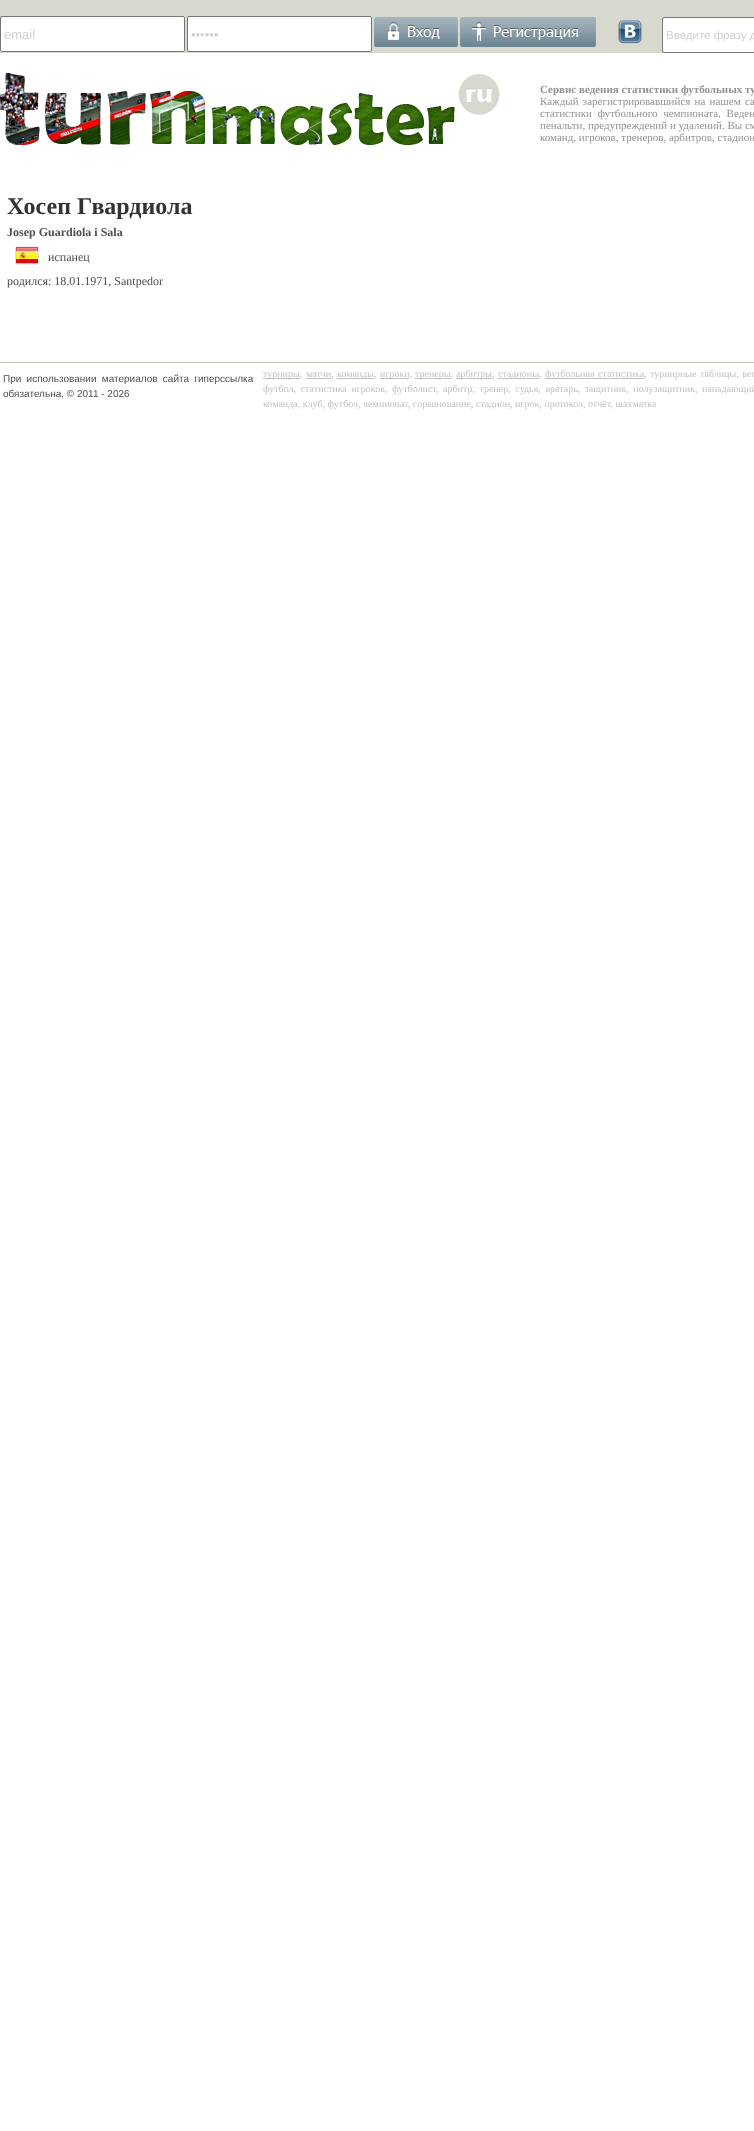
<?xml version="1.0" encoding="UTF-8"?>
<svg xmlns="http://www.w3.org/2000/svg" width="754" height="2131">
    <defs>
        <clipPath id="clip1"><rect x="666" y="29" width="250" height="12"/></clipPath>
    </defs>
    <rect width="100%" height="100%" fill="#FFFFFF"/>
    <rect x="0" y="0" width="754" height="53" fill="#D7D9CF"/>
    <rect x="0.5" y="16.5" width="184" height="35" rx="1.5" fill="#FFFFFF" stroke="#767676"/>
    <text x="4" y="39" font-family="Liberation Sans" font-size="13" fill="#D0D0D0">email</text>
    <rect x="187.5" y="16.5" width="184" height="35" rx="1.5" fill="#FFFFFF" stroke="#767676"/>
    <text x="191" y="39" font-family="Liberation Sans" font-size="13" fill="#D0D0D0">••••••</text>
    <image x="374" y="17" width="84" height="30" href="img_01.png"/>
    <image x="460" y="17" width="136" height="30" href="img_02.png"/>
    <image x="618" y="20" width="24" height="24" href="img_03.png"/>
    <rect x="662.5" y="17.5" width="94" height="35" rx="1.5" fill="#FFFFFF" stroke="#767676"/>
    <g clip-path="url(#clip1)">
        <text x="666" y="39" font-family="Liberation Sans" font-size="11.5" fill="#D0D0D0">Введите фразу д</text>
    </g>
    <image x="0" y="73" width="500" height="72" href="img_04.png"/>
    <text x="540" y="93" font-family="Liberation Serif" font-size="11" font-weight="700" fill="#929292">Сервис ведения статистики футбольных ту</text>
    <text font-family="Liberation Serif" font-size="11" fill="#929292">
        <tspan x="540" y="105" word-spacing="1.5">Каждый зарегистрировавшийся на нашем са</tspan>
        <tspan x="540" y="117" word-spacing="3">статистики футбольного чемпионата. Веден</tspan>
        <tspan x="540" y="129">пенальти, предупреждений и удалений. Вы см</tspan>
        <tspan x="540" y="141">команд, игроков, тренеров, арбитров, стадион</tspan>
    </text>
    <text x="7" y="214" font-family="Liberation Serif" font-size="24" font-weight="700" fill="#333333">Хосеп Гвардиола</text>
    <text x="7" y="236" font-family="Liberation Serif" font-size="12" font-weight="700" fill="#4D4D4D">Josep Guardiola i Sala</text>
    <image x="15" y="246" width="24" height="19" href="img_05.png"/>
    <text x="48" y="261" font-family="Liberation Serif" font-size="12" fill="#4D4D4D">испанец</text>
    <text x="7" y="285" font-family="Liberation Serif" font-size="12" fill="#4D4D4D">родился: 18.01.1971, Santpedor</text>
    <rect x="0" y="362" width="754" height="1" fill="#C3C7B5"/>
    <text font-family="Liberation Sans" font-size="10" fill="#4D4D4D">
        <tspan x="3" y="382" word-spacing="2.5">При использовании материалов сайта гиперссылка</tspan>
        <tspan x="3" y="397">обязательна, © 2011 - 2026</tspan>
    </text>
    <rect x="263" y="378" width="37" height="1" fill="#C0C0C0"/>
    <text x="263" y="377" font-family="Liberation Serif" font-size="10" fill="#C0C0C0">турниры,</text>
    <rect x="306" y="378" width="25" height="1" fill="#C0C0C0"/>
    <text x="306" y="377" font-family="Liberation Serif" font-size="10" fill="#C0C0C0">матчи,</text>
    <rect x="337" y="378" width="37" height="1" fill="#C0C0C0"/>
    <text x="337" y="377" font-family="Liberation Serif" font-size="10" fill="#C0C0C0">команды,</text>
    <rect x="380" y="378" width="29" height="1" fill="#C0C0C0"/>
    <text x="380" y="377" font-family="Liberation Serif" font-size="10" fill="#C0C0C0">игроки,</text>
    <rect x="415" y="378" width="36" height="1" fill="#C0C0C0"/>
    <text x="415" y="377" font-family="Liberation Serif" font-size="10" fill="#C0C0C0">тренеры,</text>
    <rect x="456" y="378" width="37" height="1" fill="#C0C0C0"/>
    <text x="456" y="377" font-family="Liberation Serif" font-size="10" fill="#C0C0C0">арбитры,</text>
    <rect x="498" y="378" width="41" height="1" fill="#C0C0C0"/>
    <text x="498" y="377" font-family="Liberation Serif" font-size="10" fill="#C0C0C0">стадионы,</text>
    <rect x="545" y="378" width="99" height="1" fill="#C0C0C0"/>
    <text x="545" y="377" word-spacing="1" font-family="Liberation Serif" font-size="10" fill="#C0C0C0">футбольная статистика</text>
    <text x="644" y="377" word-spacing="1" font-family="Liberation Serif" font-size="10" fill="#C0C0C0">, турнирные таблицы, вес</text>
    <text font-family="Liberation Serif" font-size="10" fill="#C0C0C0">
        <tspan x="263" y="392" word-spacing="2.1">футбол, статистика игроков, футболист, арбитр, тренер, судья, вратарь, защитник, полузащитник, нападающий</tspan>
        <tspan x="263" y="407">команда, клуб, футбол, чемпионат, соревнование, стадион, игрок, протокол, отчёт, шахматка</tspan>
    </text>
</svg>
